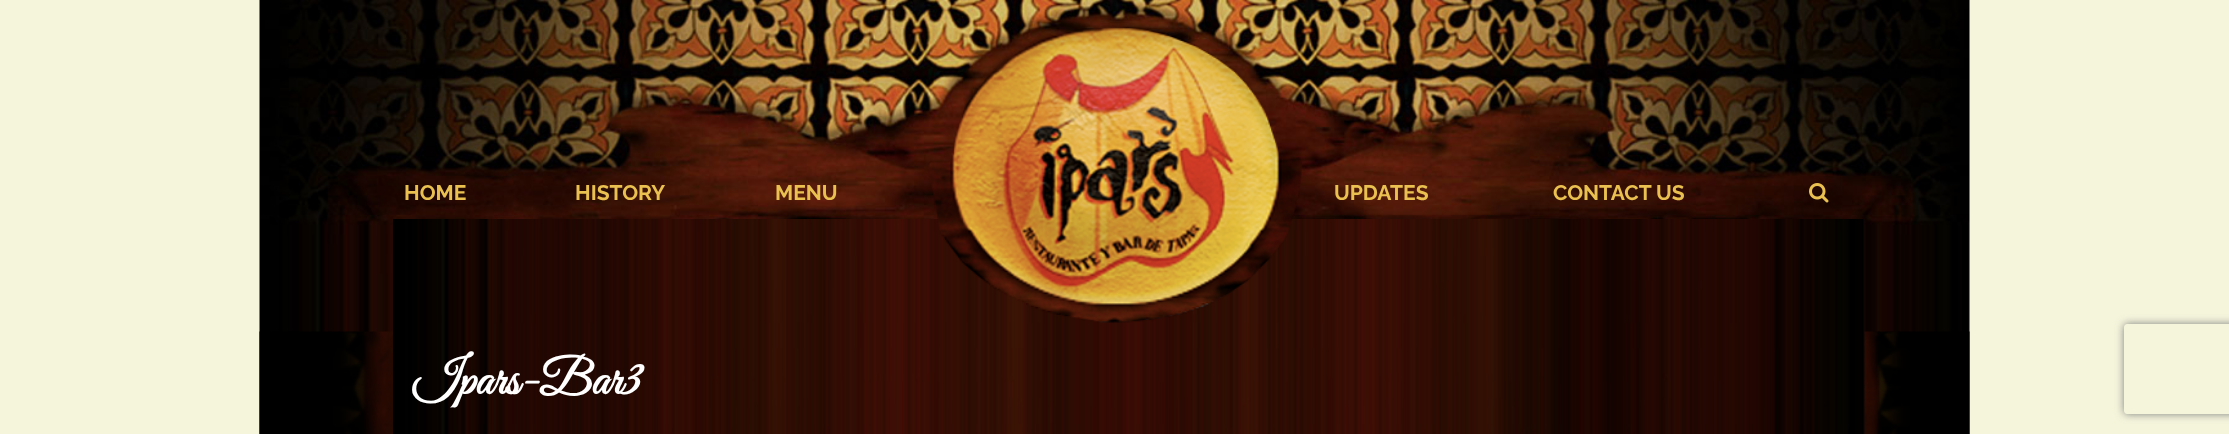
<?xml version="1.0" encoding="UTF-8"?>
<svg xmlns="http://www.w3.org/2000/svg" width="2229" height="434">
    <defs>
        <clipPath id="clip1"><path d="M 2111 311 H 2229 V 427 H 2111 Z M 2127 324 H 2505 C 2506.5 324 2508 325.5 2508 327 V 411 C 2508 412.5 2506.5 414 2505 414 H 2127 C 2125.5 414 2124 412.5 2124 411 V 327 C 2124 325.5 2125.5 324 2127 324 Z" clip-rule="evenodd"/></clipPath>
        <filter id="blur1" x="-50%" y="-200%" width="200%" height="500%"><feGaussianBlur stdDeviation="4"/></filter>
    </defs>
    <rect width="100%" height="100%" fill="#F5F5DC"/>
    <image x="259" y="0" width="1711" height="434" href="img_01.png"/>
    <image x="259" y="331" width="1711" height="103" href="img_04.png"/>
    <image x="393" y="219" width="1472" height="215" href="img_05.png"/>
    <image x="928" y="25" width="374" height="298" href="img_02.png"/>
    <text x="404" y="200" font-family="Raleway" font-size="21" font-weight="700" fill="#EAC150">HOME</text>
    <text x="575" y="200" font-family="Raleway" font-size="21" font-weight="700" fill="#EAC150">HISTORY</text>
    <text x="775" y="200" font-family="Raleway" font-size="21" font-weight="700" fill="#EAC150">MENU</text>
    <text x="1334" y="200" font-family="Raleway" font-size="21" font-weight="700" fill="#EAC150">UPDATES</text>
    <text x="1553" y="200" font-family="Raleway" font-size="21" font-weight="700" fill="#EAC150">CONTACT US</text>
    <image x="1809" y="183" width="20" height="20" href="img_03.png"/>
    <text x="413" y="394" font-family="Great Vibes" font-size="49.5" font-weight="700" fill="#FFFFFF">Ipars-Bar3</text>
    <g clip-path="url(#clip1)">
        <rect x="2124" y="324" width="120" height="90" rx="3" fill="#808080" filter="url(#blur1)"/>
    </g>
</svg>
